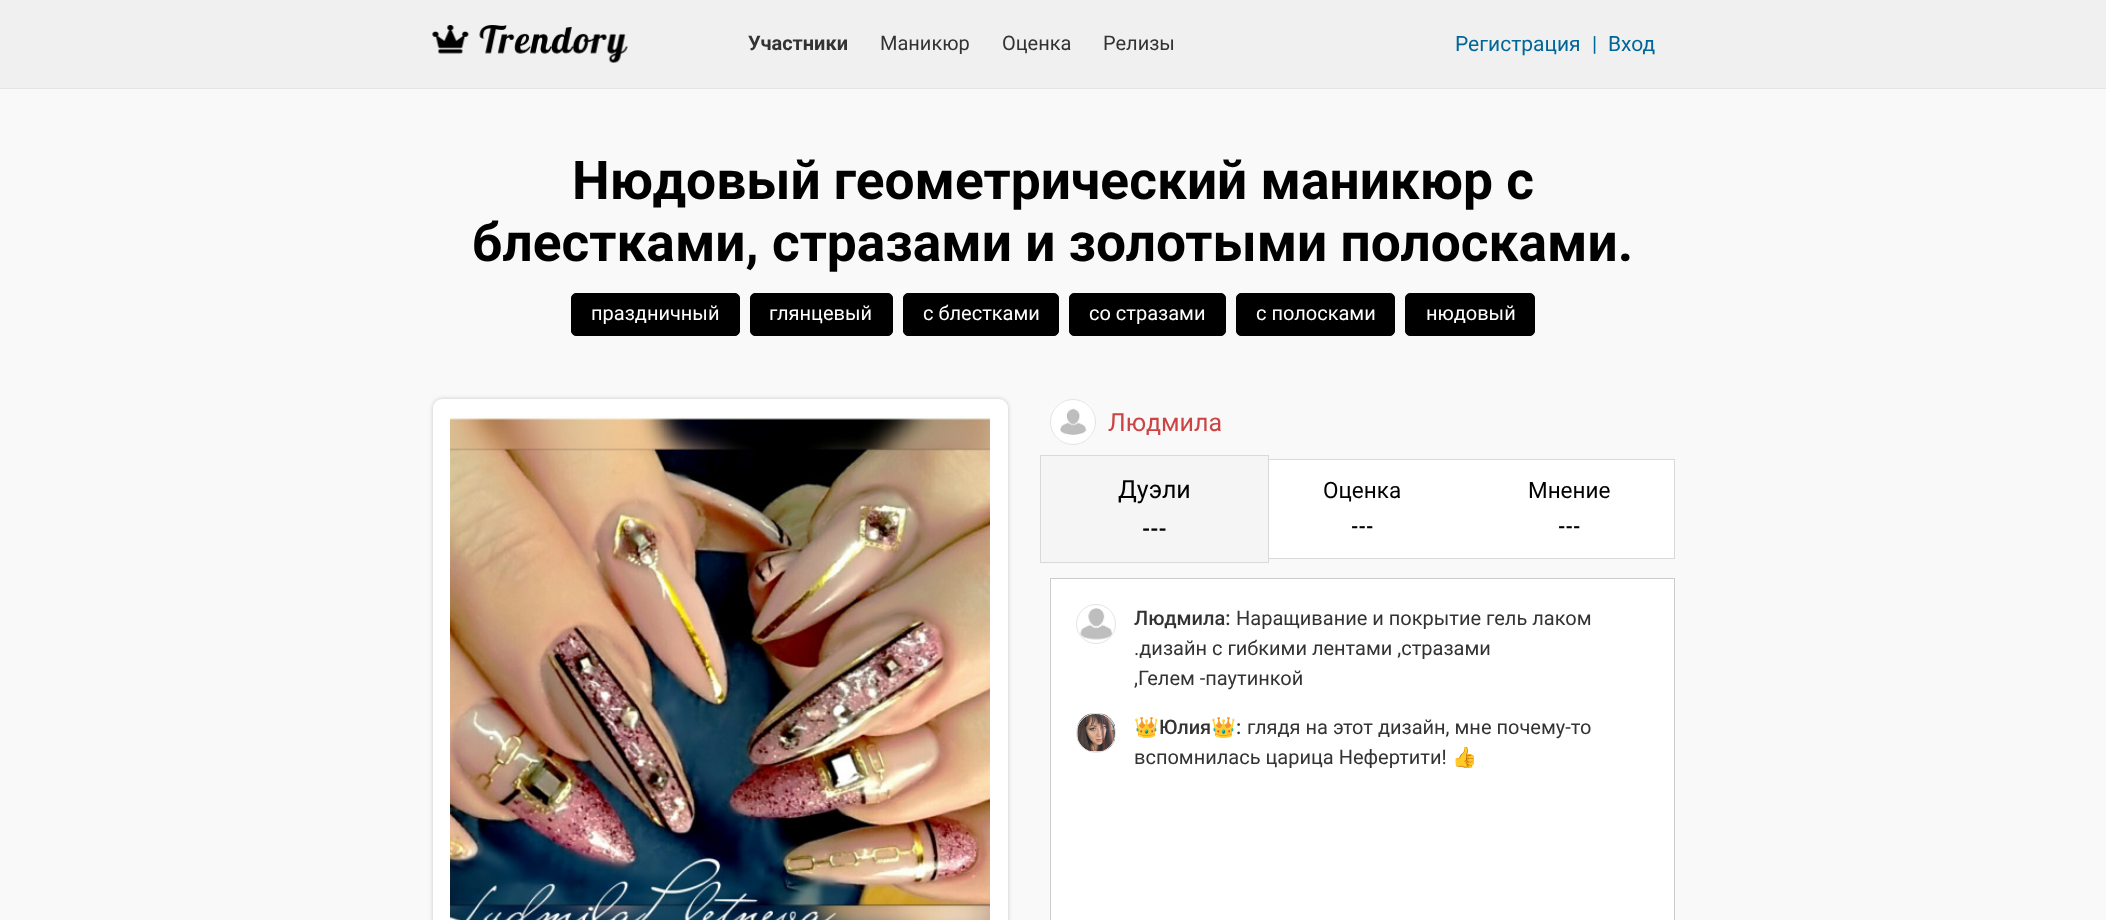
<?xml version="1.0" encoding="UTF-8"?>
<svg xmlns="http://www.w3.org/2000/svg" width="2106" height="920">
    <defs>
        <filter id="blur1" x="-50%" y="-200%" width="200%" height="500%"><feGaussianBlur stdDeviation="2"/></filter>
    </defs>
    <rect width="100%" height="100%" fill="#F9F9F9"/>
    <rect x="0" y="0" width="2106" height="88" fill="#F0F0F0"/>
    <rect x="0" y="88" width="2106" height="1" fill="#E4E4E4"/>
    <image x="432" y="25" width="196" height="38" href="img_01.png"/>
    <text x="748" y="50" font-family="Roboto" font-size="20" font-weight="700" fill="#333333">Участники</text>
    <text x="880" y="50" font-family="Roboto" font-size="20" fill="#333333">Маникюр</text>
    <text x="1002" y="50" font-family="Roboto" font-size="20" fill="#333333">Оценка</text>
    <text x="1103" y="50" font-family="Roboto" font-size="20" fill="#333333">Релизы</text>
    <text x="1455" y="51" font-family="Roboto" font-size="21" fill="#006699">Регистрация</text>
    <text x="1592" y="51" font-family="Roboto" font-size="21" fill="#006699">|</text>
    <text x="1608" y="51" font-family="Roboto" font-size="21" fill="#006699">Вход</text>
    <text x="572" y="199" font-family="Roboto" font-size="53.3" font-weight="700" fill="#000000">Нюдовый геометрический маникюр с</text>
    <text x="472" y="261" font-family="Roboto" font-size="53.3" font-weight="700" fill="#000000">блестками, стразами и золотыми полосками.</text>
    <rect x="571.5" y="293.5" width="168" height="42" rx="4.5" fill="#000000" stroke="#000000"/>
    <text x="591" y="320" font-family="Roboto" font-size="20" fill="#FFFFFF">праздничный</text>
    <rect x="750.5" y="293.5" width="142" height="42" rx="4.5" fill="#000000" stroke="#000000"/>
    <text x="769" y="320" font-family="Roboto" font-size="20" fill="#FFFFFF">глянцевый</text>
    <rect x="903.5" y="293.5" width="155" height="42" rx="4.5" fill="#000000" stroke="#000000"/>
    <text x="923" y="320" font-family="Roboto" font-size="20" fill="#FFFFFF">с блестками</text>
    <rect x="1069.5" y="293.5" width="156" height="42" rx="4.5" fill="#000000" stroke="#000000"/>
    <text x="1089" y="320" font-family="Roboto" font-size="20" fill="#FFFFFF">со стразами</text>
    <rect x="1236.5" y="293.5" width="158" height="42" rx="4.5" fill="#000000" stroke="#000000"/>
    <text x="1256" y="320" font-family="Roboto" font-size="20" fill="#FFFFFF">с полосками</text>
    <rect x="1405.5" y="293.5" width="129" height="42" rx="4.5" fill="#000000" stroke="#000000"/>
    <text x="1426" y="320" font-family="Roboto" font-size="20" fill="#FFFFFF">нюдовый</text>
    <rect x="433" y="399" width="575" height="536" rx="9" fill="#000000" fill-opacity="0.2" filter="url(#blur1)"/>
    <rect x="433" y="399" width="575" height="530" rx="9" fill="#FFFFFF"/>
    <image x="450" y="416" width="540" height="504" href="img_02.png"/>
    <image x="1051" y="400" width="44" height="44" href="img_03.png"/>
    <circle cx="1073" cy="422" r="22.5" fill="none" stroke="#E4E4E4"/>
    <text x="1108" y="431" font-family="Roboto" font-size="25" fill="#CC4444">Людмила</text>
    <rect x="1269" y="460" width="405" height="98" fill="#FFFFFF"/>
    <rect x="1050.5" y="459.5" width="624" height="99" fill="none" stroke="#D9D9D9"/>
    <rect x="1040.5" y="455.5" width="228" height="107" fill="#F5F5F5" stroke="#D9D9D9"/>
    <text x="1118" y="498" font-family="Roboto" font-size="25" fill="#000000">Дуэли</text>
    <text x="1142" y="536" font-family="Roboto" font-size="21" font-weight="700" fill="#000000">---</text>
    <text x="1323" y="498" font-family="Roboto" font-size="22.5" fill="#000000">Оценка</text>
    <text x="1351" y="533" font-family="Roboto" font-size="19" font-weight="700" fill="#000000">---</text>
    <text x="1528" y="498" font-family="Roboto" font-size="22.5" fill="#000000">Мнение</text>
    <text x="1558" y="533" font-family="Roboto" font-size="19" font-weight="700" fill="#000000">---</text>
    <rect x="1050.5" y="578.5" width="624" height="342" fill="#FFFFFF" stroke="#CCCCCC"/>
    <image x="1080" y="608" width="32" height="32" href="img_04.png"/>
    <circle cx="1096" cy="624" r="19.5" fill="none" stroke="#E4E4E4"/>
    <text x="1134" y="625" font-family="Roboto" font-size="20" font-weight="500" fill="#333333">Людмила:</text>
    <text x="1236" y="625" font-family="Roboto" font-size="20" fill="#333333">Наращивание и покрытие гель лаком</text>
    <text font-family="Roboto" font-size="20" fill="#333333">
        <tspan x="1134" y="655">.дизайн с гибкими лентами ,стразами</tspan>
        <tspan x="1134" y="685">,Гелем -паутинкой</tspan>
    </text>
    <image x="1077" y="713" width="38" height="39" href="img_05.png"/>
    <circle cx="1096" cy="733" r="19.5" fill="none" stroke="#E4E4E4"/>
    <text x="1134" y="734" font-family="Noto Color Emoji" font-size="20" fill="#333333">👑</text>
    <text x="1159" y="734" font-family="Roboto" font-size="20" font-weight="500" fill="#333333">Юлия</text>
    <text x="1211" y="734" font-family="Noto Color Emoji" font-size="20" fill="#333333">👑</text>
    <text x="1236" y="734" font-family="Roboto" font-size="20" font-weight="500" fill="#333333">:</text>
    <text x="1247" y="734" font-family="Roboto" font-size="20" fill="#333333">глядя на этот дизайн, мне почему-то</text>
    <text x="1134" y="764" font-family="Roboto" font-size="20" fill="#333333">вспомнилась царица Нефертити!</text>
    <text x="1452" y="764" font-family="Noto Color Emoji" font-size="20" fill="#333333">👍</text>
</svg>
